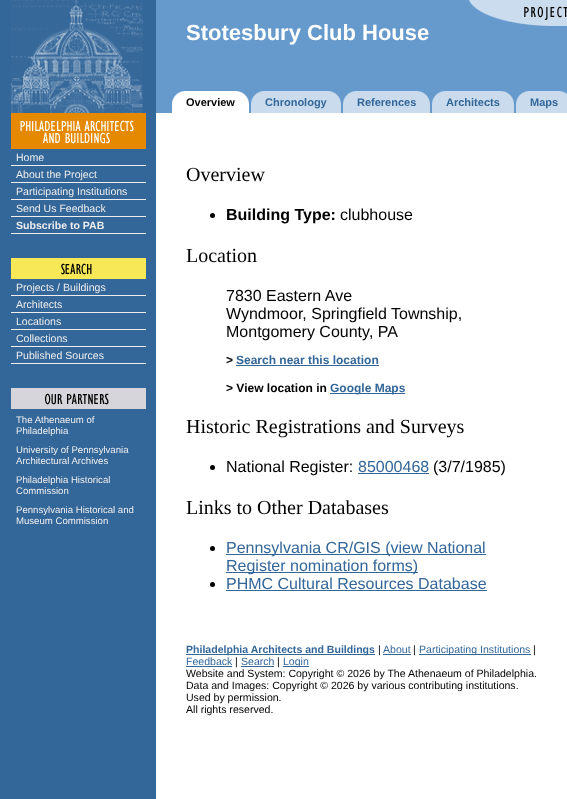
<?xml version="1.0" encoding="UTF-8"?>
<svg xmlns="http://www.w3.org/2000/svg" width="567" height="799">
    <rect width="100%" height="100%" fill="#6699CC"/>
    <rect x="0" y="0" width="156" height="799" fill="#336699"/>
    <image x="11" y="0" width="132" height="113" href="img_01.png"/>
    <image x="469" y="0" width="98" height="26" href="img_02.png"/>
    <text x="186" y="40" font-family="Liberation Sans" font-size="22" font-weight="700" fill="#FFFFFF">Stotesbury Club House</text>
    <image x="172" y="91" width="14" height="22" href="img_03.png"/>
    <rect x="186" y="91" width="49" height="22" fill="#FFFFFF"/>
    <text x="186" y="106" font-family="Liberation Sans" font-size="11" font-weight="700" fill="#000000">Overview</text>
    <image x="235" y="91" width="14" height="22" href="img_04.png"/>
    <image x="251" y="91" width="14" height="22" href="img_05.png"/>
    <rect x="265" y="91" width="62" height="22" fill="#CADBED"/>
    <text x="265" y="106" font-family="Liberation Sans" font-size="11" font-weight="700" fill="#336699">Chronology</text>
    <image x="327" y="91" width="14" height="22" href="img_06.png"/>
    <image x="343" y="91" width="14" height="22" href="img_05.png"/>
    <rect x="357" y="91" width="59" height="22" fill="#CADBED"/>
    <text x="357" y="106" font-family="Liberation Sans" font-size="11" font-weight="700" fill="#336699">References</text>
    <image x="416" y="91" width="14" height="22" href="img_06.png"/>
    <image x="432" y="91" width="14" height="22" href="img_05.png"/>
    <rect x="446" y="91" width="54" height="22" fill="#CADBED"/>
    <text x="446" y="106" font-family="Liberation Sans" font-size="11" font-weight="700" fill="#336699">Architects</text>
    <image x="500" y="91" width="14" height="22" href="img_06.png"/>
    <image x="516" y="91" width="14" height="22" href="img_05.png"/>
    <rect x="530" y="91" width="28" height="22" fill="#CADBED"/>
    <text x="530" y="106" font-family="Liberation Sans" font-size="11" font-weight="700" fill="#336699">Maps</text>
    <image x="558" y="91" width="9" height="22" href="img_07.png"/>
    <image x="11" y="113" width="135" height="36" href="img_08.png"/>
    <rect x="11" y="165" width="135" height="1" fill="#EEEEEE"/>
    <text x="16" y="161" font-family="Liberation Sans" font-size="10.55" fill="#EEEEEE">Home</text>
    <rect x="11" y="182" width="135" height="1" fill="#EEEEEE"/>
    <text x="16" y="178" font-family="Liberation Sans" font-size="10.55" fill="#EEEEEE">About the Project</text>
    <rect x="11" y="199" width="135" height="1" fill="#EEEEEE"/>
    <text x="16" y="195" font-family="Liberation Sans" font-size="10.55" fill="#EEEEEE">Participating Institutions</text>
    <rect x="11" y="216" width="135" height="1" fill="#EEEEEE"/>
    <text x="16" y="212" font-family="Liberation Sans" font-size="10.55" fill="#EEEEEE">Send Us Feedback</text>
    <rect x="11" y="233" width="135" height="1" fill="#EEEEEE"/>
    <text x="16" y="229" font-family="Liberation Sans" font-size="10.55" font-weight="700" fill="#EEEEEE">Subscribe to PAB</text>
    <image x="11" y="258" width="135" height="21" href="img_09.png"/>
    <rect x="11" y="295" width="135" height="1" fill="#EEEEEE"/>
    <text x="16" y="291" font-family="Liberation Sans" font-size="10.55" fill="#EEEEEE">Projects / Buildings</text>
    <rect x="11" y="312" width="135" height="1" fill="#EEEEEE"/>
    <text x="16" y="308" font-family="Liberation Sans" font-size="10.55" fill="#EEEEEE">Architects</text>
    <rect x="11" y="329" width="135" height="1" fill="#EEEEEE"/>
    <text x="16" y="325" font-family="Liberation Sans" font-size="10.55" fill="#EEEEEE">Locations</text>
    <rect x="11" y="346" width="135" height="1" fill="#EEEEEE"/>
    <text x="16" y="342" font-family="Liberation Sans" font-size="10.55" fill="#EEEEEE">Collections</text>
    <rect x="11" y="363" width="135" height="1" fill="#EEEEEE"/>
    <text x="16" y="359" font-family="Liberation Sans" font-size="10.55" fill="#EEEEEE">Published Sources</text>
    <image x="11" y="388" width="135" height="21" href="img_10.png"/>
    <text font-family="Liberation Sans" font-size="9.6" fill="#EEEEEE">
        <tspan x="16" y="423">The Athenaeum of</tspan>
        <tspan x="16" y="434">Philadelphia</tspan>
        <tspan x="16" y="453">University of Pennsylvania</tspan>
        <tspan x="16" y="464">Architectural Archives</tspan>
        <tspan x="16" y="483">Philadelphia Historical</tspan>
        <tspan x="16" y="494">Commission</tspan>
        <tspan x="16" y="513">Pennsylvania Historical and</tspan>
        <tspan x="16" y="524">Museum Commission</tspan>
    </text>
    <rect x="156" y="113" width="411" height="686" fill="#FFFFFF"/>
    <text x="186" y="181" font-family="Liberation Serif" font-size="20" fill="#000000">Overview</text>
    <circle cx="212.5" cy="215.5" r="2.5" fill="#000000"/>
    <text x="226" y="220" font-family="Liberation Sans" font-size="16" font-weight="700" fill="#000000">Building Type:</text>
    <text x="340" y="220" font-family="Liberation Sans" font-size="16" fill="#000000">clubhouse</text>
    <text x="186" y="262" font-family="Liberation Serif" font-size="20" fill="#000000">Location</text>
    <text font-family="Liberation Sans" font-size="16" fill="#000000">
        <tspan x="226" y="301">7830 Eastern Ave</tspan>
        <tspan x="226" y="319">Wyndmoor, Springfield Township,</tspan>
        <tspan x="226" y="337">Montgomery County, PA</tspan>
    </text>
    <text x="226" y="364" font-family="Liberation Sans" font-size="12" font-weight="700" fill="#000000">&gt;</text>
    <text x="236" y="364" font-family="Liberation Sans" font-size="12" font-weight="700" fill="#336699">Search near this location</text>
    <rect x="236" y="365" width="143" height="1" fill="#336699"/>
    <text x="226" y="392" font-family="Liberation Sans" font-size="12" font-weight="700" fill="#000000">&gt; View location in</text>
    <rect x="330" y="393" width="75" height="1" fill="#336699"/>
    <text x="330" y="392" font-family="Liberation Sans" font-size="12" font-weight="700" fill="#336699">Google Maps</text>
    <text x="186" y="433" font-family="Liberation Serif" font-size="20" fill="#000000">Historic Registrations and Surveys</text>
    <circle cx="212.5" cy="467.5" r="2.5" fill="#000000"/>
    <text x="226" y="472" font-family="Liberation Sans" font-size="16" fill="#000000">National Register:</text>
    <text x="358" y="472" font-family="Liberation Sans" font-size="16" fill="#336699">85000468</text>
    <rect x="358" y="473" width="71" height="1" fill="#336699"/>
    <text x="433" y="472" font-family="Liberation Sans" font-size="16" fill="#000000">(3/7/1985)</text>
    <text x="186" y="514" font-family="Liberation Serif" font-size="20" fill="#000000">Links to Other Databases</text>
    <circle cx="212.5" cy="548.5" r="2.5" fill="#000000"/>
    <rect x="226" y="554" width="260" height="1" fill="#336699"/>
    <text x="226" y="553" font-family="Liberation Sans" font-size="16" fill="#336699">Pennsylvania CR/GIS (view National</text>
    <rect x="226" y="572" width="192" height="1" fill="#336699"/>
    <text x="226" y="571" font-family="Liberation Sans" font-size="16" fill="#336699">Register nomination forms)</text>
    <circle cx="212.5" cy="584.5" r="2.5" fill="#000000"/>
    <text x="226" y="589" font-family="Liberation Sans" font-size="16" fill="#336699">PHMC Cultural Resources Database</text>
    <rect x="226" y="590" width="261" height="1" fill="#336699"/>
    <rect x="186" y="654" width="189" height="1" fill="#336699"/>
    <text x="186" y="653" font-family="Liberation Sans" font-size="10.55" font-weight="700" fill="#336699">Philadelphia Architects and Buildings</text>
    <text x="378" y="653" font-family="Liberation Sans" font-size="10.55" fill="#000000">|</text>
    <text x="383" y="653" font-family="Liberation Sans" font-size="10.55" fill="#336699">About</text>
    <rect x="383" y="654" width="28" height="1" fill="#336699"/>
    <text x="413" y="653" font-family="Liberation Sans" font-size="10.55" fill="#000000">|</text>
    <rect x="419" y="654" width="112" height="1" fill="#336699"/>
    <text x="419" y="653" font-family="Liberation Sans" font-size="10.55" fill="#336699">Participating Institutions</text>
    <text x="533" y="653" font-family="Liberation Sans" font-size="10.55" fill="#000000">|</text>
    <text x="186" y="665" font-family="Liberation Sans" font-size="10.55" fill="#336699">Feedback</text>
    <rect x="186" y="666" width="46" height="1" fill="#336699"/>
    <text x="235" y="665" font-family="Liberation Sans" font-size="10.55" fill="#000000">|</text>
    <text x="241" y="665" font-family="Liberation Sans" font-size="10.55" fill="#336699">Search</text>
    <rect x="241" y="666" width="33" height="1" fill="#336699"/>
    <text x="277" y="665" font-family="Liberation Sans" font-size="10.55" fill="#000000">|</text>
    <rect x="283" y="666" width="26" height="1" fill="#336699"/>
    <text x="283" y="665" font-family="Liberation Sans" font-size="10.55" fill="#336699">Login</text>
    <text font-family="Liberation Sans" font-size="10.55" fill="#000000">
        <tspan x="186" y="677">Website and System: Copyright © 2026 by The Athenaeum of Philadelphia.</tspan>
        <tspan x="186" y="689">Data and Images: Copyright © 2026 by various contributing institutions.</tspan>
        <tspan x="186" y="701">Used by permission.</tspan>
        <tspan x="186" y="713">All rights reserved.</tspan>
    </text>
</svg>
